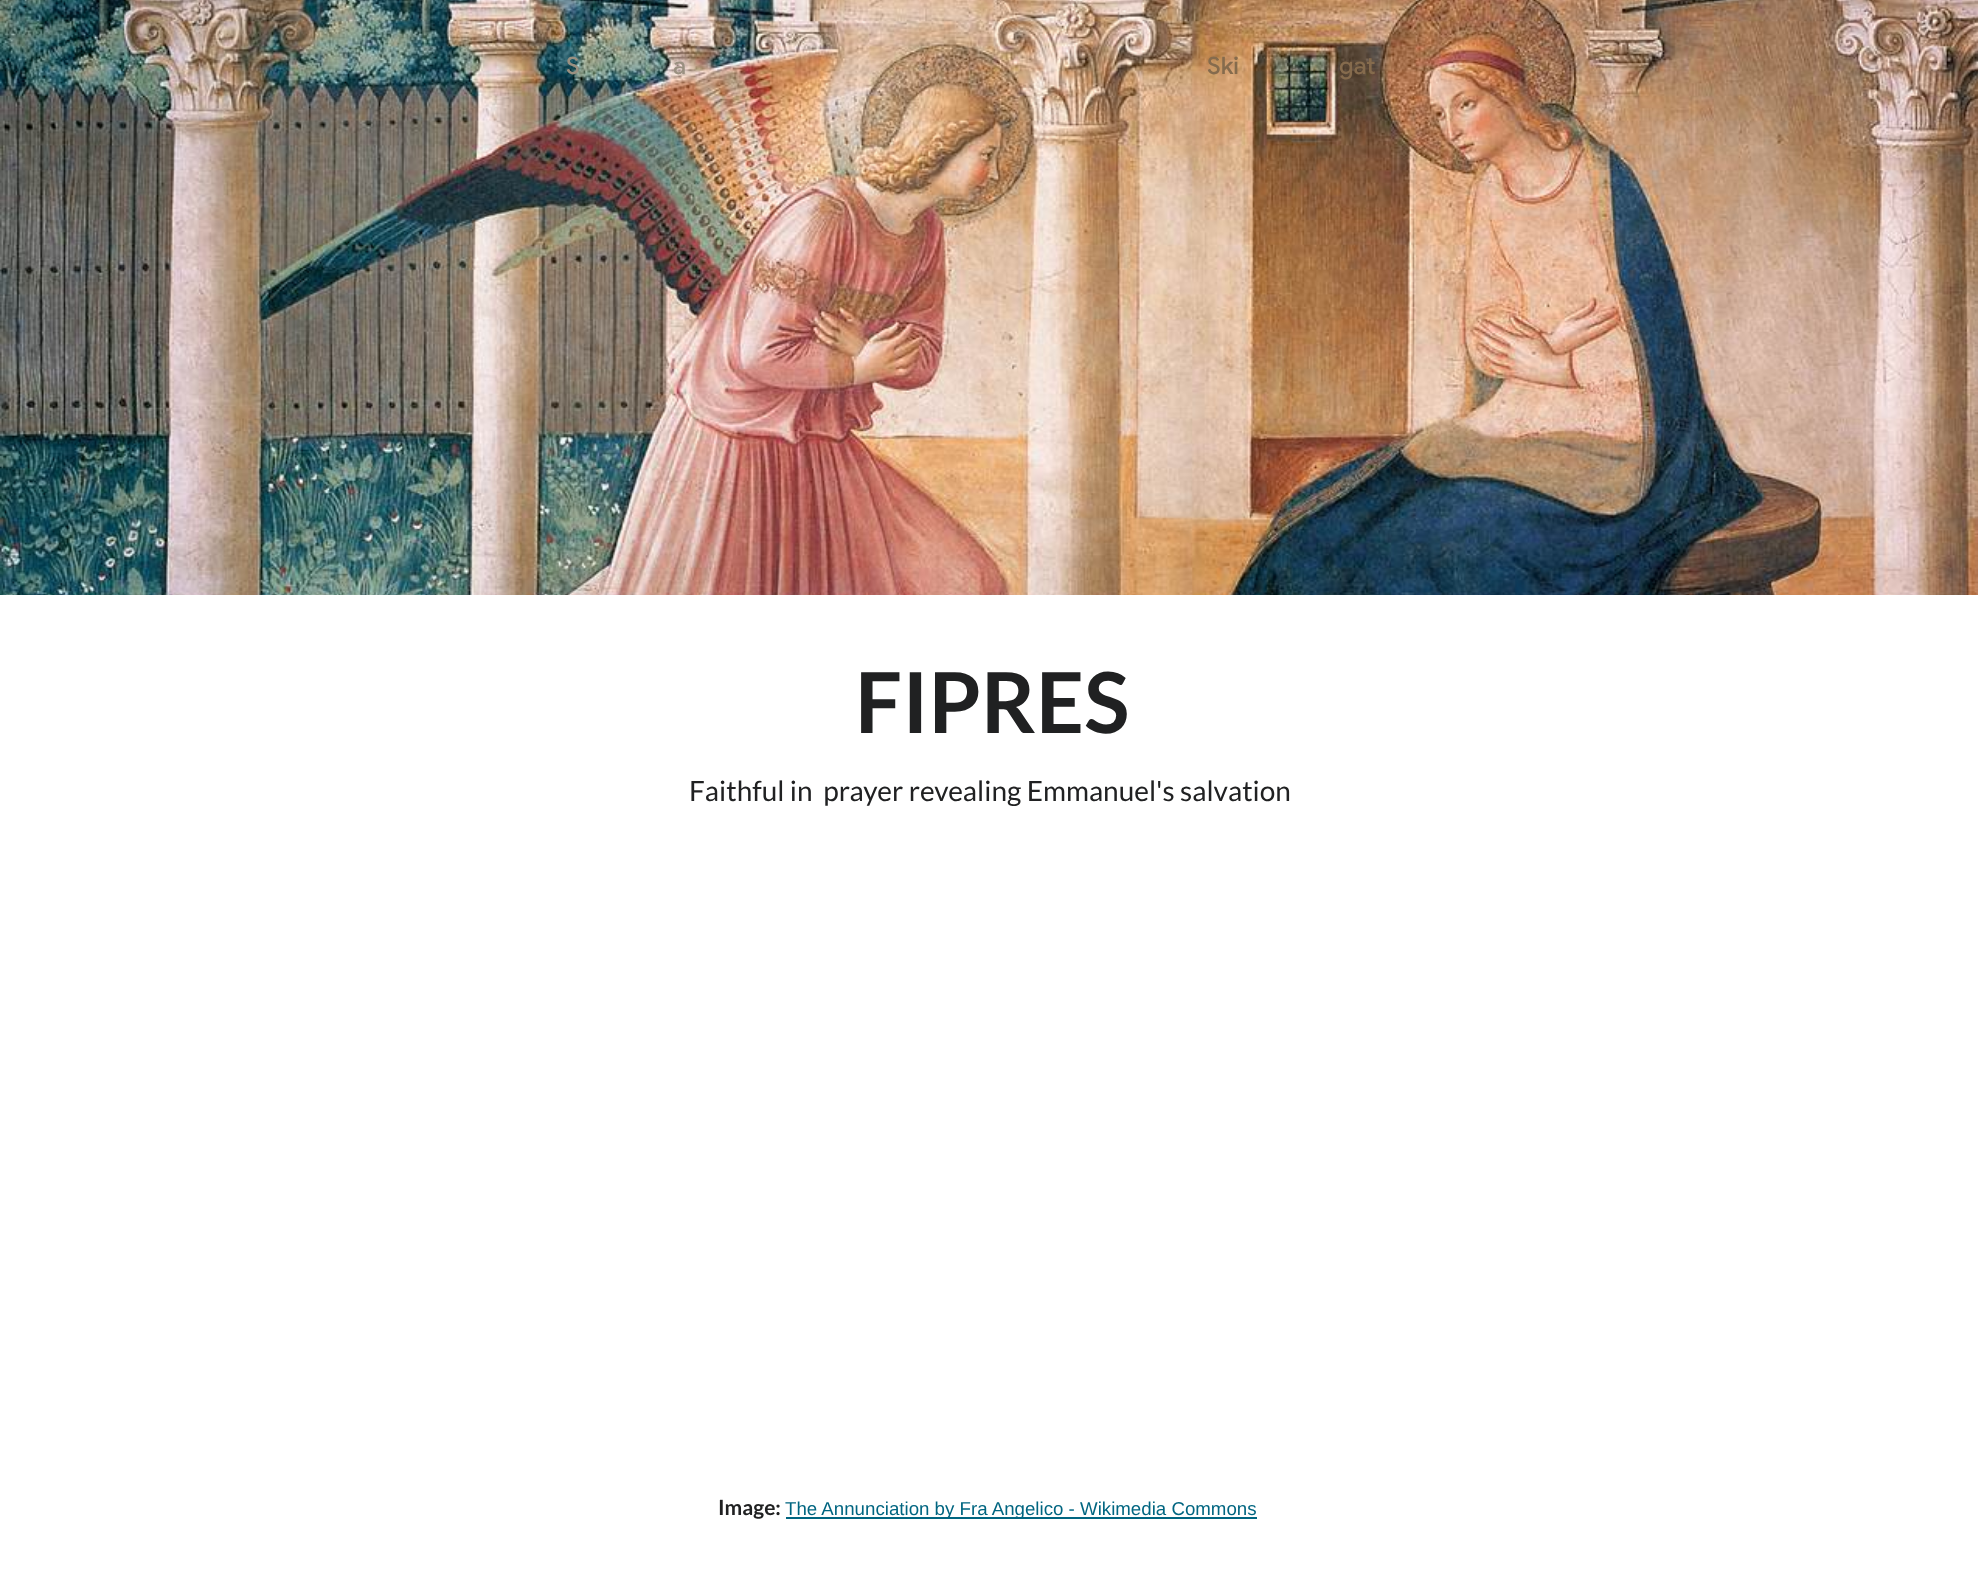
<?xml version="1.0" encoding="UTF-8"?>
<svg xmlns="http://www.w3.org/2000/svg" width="1978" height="1576">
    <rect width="100%" height="100%" fill="#FFFFFF"/>
    <image x="0" y="0" width="1978" height="595" href="img_01.png"/>
    <text x="566" y="74" font-family="Google Sans" font-size="24" font-weight="500" fill="#9A9081">S</text>
    <text x="673" y="74" font-family="Google Sans" font-size="24" font-weight="500" fill="#9A9081">a</text>
    <text x="1207" y="74" font-family="Google Sans" font-size="24" font-weight="500" fill="#856B4D">Ski</text>
    <text x="1339" y="74" font-family="Google Sans" font-size="24" font-weight="500" fill="#856B4D">gat</text>
    <text x="855" y="733" font-family="Lato" font-size="84" font-weight="700" fill="#202122">FIPRES</text>
    <text x="689" y="801" font-family="Lato" font-size="28" fill="#202122" xml:space="preserve">Faithful in  prayer revealing Emmanuel's salvation</text>
    <text x="718" y="1515" font-family="Lato" font-size="21" font-weight="700" fill="#202122">Image:</text>
    <rect x="786" y="1517" width="471" height="2" fill="#006580"/>
    <text x="785" y="1515" font-family="Liberation Sans" font-size="18.7" fill="#006580">The Annunciation by Fra Angelico - Wikimedia Commons</text>
</svg>
